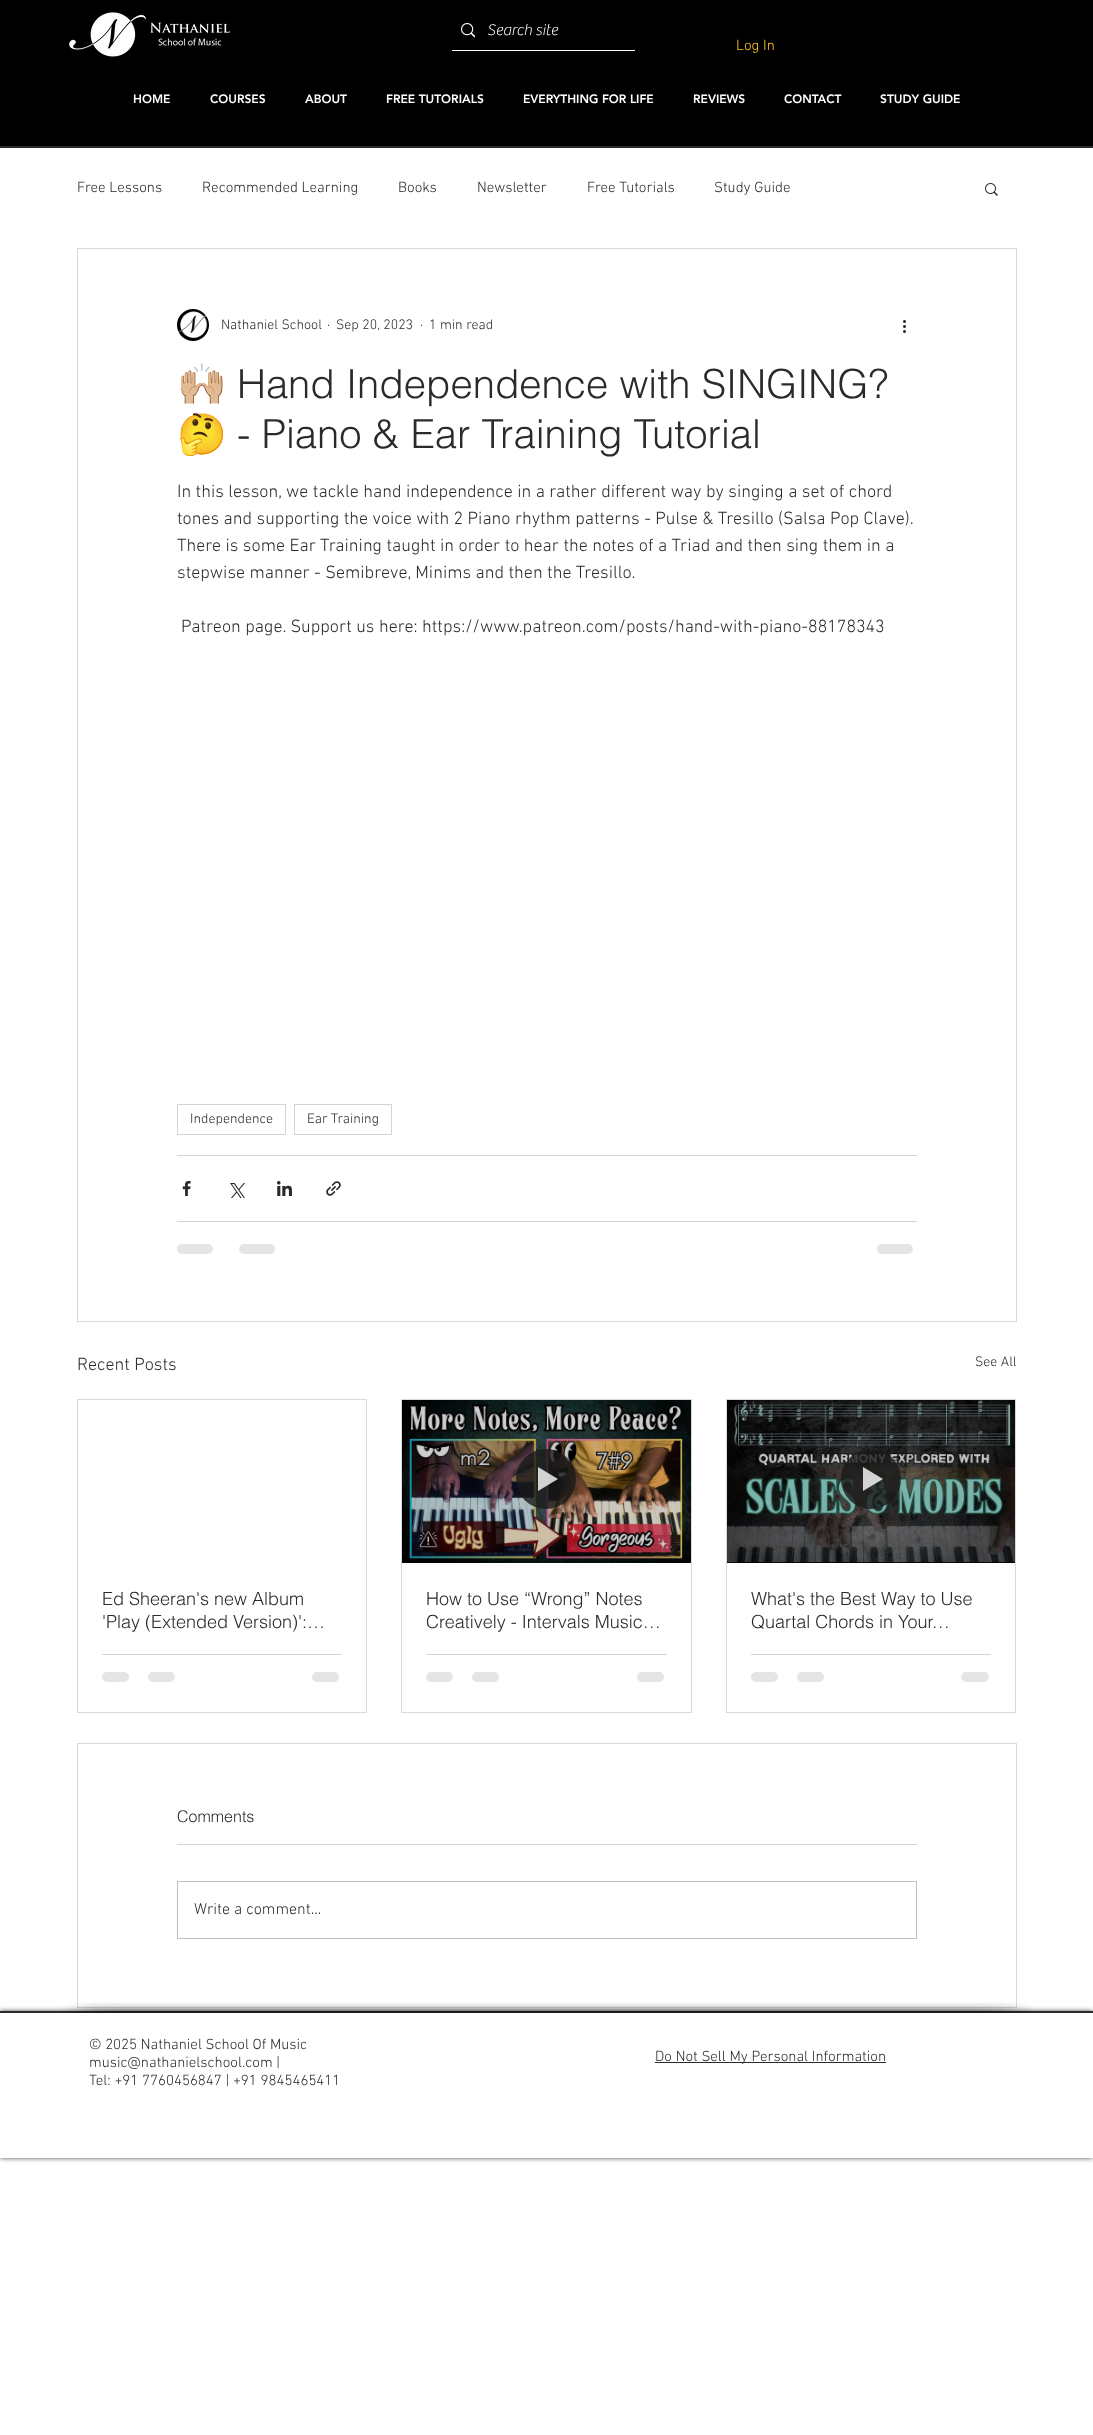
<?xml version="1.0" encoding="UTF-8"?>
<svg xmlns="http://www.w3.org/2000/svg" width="1093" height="2435">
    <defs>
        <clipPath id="clip1"><path d="M 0 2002 H 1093 V 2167 H 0 Z M 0 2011 H 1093 V 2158 H 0 Z" clip-rule="evenodd"/></clipPath>
        <filter id="blur1" x="-50%" y="-200%" width="200%" height="500%"><feGaussianBlur stdDeviation="2.5"/></filter>
    </defs>
    <rect width="100%" height="100%" fill="#FFFFFF"/>
    <rect x="0" y="0" width="1093" height="146" fill="#000000"/>
    <rect x="0" y="146" width="1093" height="2" fill="#2A2A2A"/>
    <image x="69" y="12" width="162" height="45" href="img_01.png"/>
    <rect x="452" y="50" width="183" height="1" fill="#FFFFFF"/>
    <image x="461" y="23" width="14" height="15" href="img_02.png"/>
    <text x="487" y="35" font-family="'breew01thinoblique'" font-size="16" font-weight="100" fill="#FFFFFF">Search site</text>
    <text x="736" y="50" font-family="'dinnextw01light'" font-size="15" font-weight="300" fill="#FFC824">Log In</text>
    <text x="133" y="103" font-family="'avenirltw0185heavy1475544'" font-size="12" font-weight="900" fill="#FFFFFF">HOME</text>
    <text x="210" y="103" font-family="'avenirltw0185heavy1475544'" font-size="12" font-weight="900" fill="#FFFFFF">COURSES</text>
    <text x="305" y="103" font-family="'avenirltw0185heavy1475544'" font-size="12" font-weight="900" fill="#FFFFFF">ABOUT</text>
    <text x="386" y="103" font-family="'avenirltw0185heavy1475544'" font-size="12" font-weight="900" fill="#FFFFFF">FREE TUTORIALS</text>
    <text x="523" y="103" font-family="'avenirltw0185heavy1475544'" font-size="12" font-weight="900" fill="#FFFFFF">EVERYTHING FOR LIFE</text>
    <text x="693" y="103" font-family="'avenirltw0185heavy1475544'" font-size="12" font-weight="900" fill="#FFFFFF">REVIEWS</text>
    <text x="784" y="103" font-family="'avenirltw0185heavy1475544'" font-size="12" font-weight="900" fill="#FFFFFF">CONTACT</text>
    <text x="880" y="103" font-family="'avenirltw0185heavy1475544'" font-size="12" font-weight="900" fill="#FFFFFF">STUDY GUIDE</text>
    <text x="77" y="192" font-family="'dinnextw01light'" font-size="15" font-weight="300" fill="#2A2A2A">Free Lessons</text>
    <text x="202" y="192" font-family="'dinnextw01light'" font-size="15" font-weight="300" fill="#2A2A2A">Recommended Learning</text>
    <text x="398" y="192" font-family="'dinnextw01light'" font-size="15" font-weight="300" fill="#2A2A2A">Books</text>
    <text x="477" y="192" font-family="'dinnextw01light'" font-size="15" font-weight="300" fill="#2A2A2A">Newsletter</text>
    <text x="587" y="192" font-family="'dinnextw01light'" font-size="15" font-weight="300" fill="#2A2A2A">Free Tutorials</text>
    <text x="714" y="192" font-family="'dinnextw01light'" font-size="15" font-weight="300" fill="#2A2A2A">Study Guide</text>
    <image x="985" y="183" width="13" height="13" href="img_03.png"/>
    <rect x="77.5" y="248.5" width="939" height="1073" fill="none" stroke="#D9D9D9"/>
    <image x="177" y="309" width="32" height="32" href="img_04.png"/>
    <text x="221" y="329" font-family="'dinnextw01light'" font-size="14" font-weight="300" fill="#2A2A2A">Nathaniel School</text>
    <text x="327" y="329" font-family="'dinnextw01light'" font-size="14" font-weight="300" fill="#2A2A2A">·</text>
    <text x="336" y="329" font-family="'dinnextw01light'" font-size="14" font-weight="300" fill="#2A2A2A">Sep 20, 2023</text>
    <text x="420" y="329" font-family="'dinnextw01light'" font-size="14" font-weight="300" fill="#2A2A2A">·</text>
    <text x="429" y="329" font-family="'dinnextw01light'" font-size="14" font-weight="300" fill="#2A2A2A">1 min read</text>
    <image x="903" y="320" width="3" height="13" href="img_05.png"/>
    <text x="177" y="398" font-family="Noto Color Emoji" font-size="40" fill="#2A2A2A">🙌🏼</text>
    <text x="237" y="398" font-family="helvetica" font-size="40" font-weight="300" fill="#2A2A2A">Hand Independence with SINGING?</text>
    <text x="177" y="448" font-family="Noto Color Emoji" font-size="40" fill="#2A2A2A">🤔</text>
    <text x="237" y="448" font-family="helvetica" font-size="40" font-weight="300" fill="#2A2A2A">- Piano &amp; Ear Training Tutorial</text>
    <text font-family="'dinnextw01light'" font-size="18" font-weight="300" fill="#2A2A2A">
        <tspan x="177" y="497">In this lesson, we tackle hand independence in a rather different way by singing a set of chord</tspan>
        <tspan x="177" y="524">tones and supporting the voice with 2 Piano rhythm patterns - Pulse &amp; Tresillo (Salsa Pop Clave).</tspan>
        <tspan x="177" y="551">There is some Ear Training taught in order to hear the notes of a Triad and then sing them in a</tspan>
        <tspan x="177" y="578">stepwise manner - Semibreve, Minims and then the Tresillo.</tspan>
    </text>
    <text x="181" y="632" font-family="'dinnextw01light'" font-size="18" font-weight="300" fill="#2A2A2A">Patreon page. Support us here: https://www.patreon.com/posts/hand-with-piano-88178343</text>
    <rect x="177.5" y="1104.5" width="108" height="30" fill="none" stroke="#D4D4D4"/>
    <text x="190" y="1123" font-family="'dinnextw01light'" font-size="14" font-weight="300" fill="#2A2A2A">Independence</text>
    <rect x="294.5" y="1104.5" width="97" height="30" fill="none" stroke="#D4D4D4"/>
    <text x="307" y="1123" font-family="'dinnextw01light'" font-size="14" font-weight="300" fill="#2A2A2A">Ear Training</text>
    <rect x="177" y="1155" width="740" height="1" fill="#D4D4D4"/>
    <image x="182" y="1181" width="9" height="15" href="img_06.png"/>
    <image x="230" y="1183" width="15" height="15" href="img_07.png"/>
    <image x="277" y="1181" width="15" height="15" href="img_08.png"/>
    <image x="326" y="1181" width="15" height="15" href="img_09.png"/>
    <rect x="177" y="1221" width="740" height="1" fill="#D4D4D4"/>
    <rect x="177" y="1244" width="36" height="10" rx="5" fill="#E5E5E5"/>
    <rect x="239" y="1244" width="36" height="10" rx="5" fill="#E5E5E5"/>
    <rect x="877" y="1244" width="36" height="10" rx="5" fill="#E5E5E5"/>
    <text x="77" y="1370" font-family="'dinnextw01light'" font-size="18" font-weight="300" fill="#2A2A2A">Recent Posts</text>
    <text x="975" y="1366" font-family="'dinnextw01light'" font-size="14" font-weight="300" fill="#2A2A2A">See All</text>
    <rect x="77.5" y="1399.5" width="289" height="313" fill="none" stroke="#D9D9D9"/>
    <text font-family="helvetica" font-size="18" font-weight="300" fill="#2A2A2A">
        <tspan x="102" y="1605">Ed Sheeran's new Album</tspan>
        <tspan x="102" y="1628">'Play (Extended Version)':…</tspan>
    </text>
    <rect x="102" y="1654" width="240" height="1" fill="#D4D4D4"/>
    <rect x="102" y="1672" width="27" height="10" rx="5" fill="#E5E5E5"/>
    <rect x="148" y="1672" width="27" height="10" rx="5" fill="#E5E5E5"/>
    <rect x="312" y="1672" width="27" height="10" rx="5" fill="#E5E5E5"/>
    <rect x="401.5" y="1399.5" width="290" height="313" fill="none" stroke="#D9D9D9"/>
    <image x="402" y="1400" width="289" height="163" href="img_10.png"/>
    <circle cx="546" cy="1479" r="30" fill="#1A1A1A" fill-opacity="0.8"/>
    <path d="M 538 1467 V 1491 L 558 1479 Z" fill="#FFFFFF" fill-opacity="0.8"/>
    <text font-family="helvetica" font-size="18" font-weight="300" fill="#2A2A2A">
        <tspan x="426" y="1605">How to Use “Wrong” Notes</tspan>
        <tspan x="426" y="1628">Creatively - Intervals Music…</tspan>
    </text>
    <rect x="426" y="1654" width="241" height="1" fill="#D4D4D4"/>
    <rect x="426" y="1672" width="27" height="10" rx="5" fill="#E5E5E5"/>
    <rect x="472" y="1672" width="27" height="10" rx="5" fill="#E5E5E5"/>
    <rect x="637" y="1672" width="27" height="10" rx="5" fill="#E5E5E5"/>
    <rect x="726.5" y="1399.5" width="289" height="313" fill="none" stroke="#D9D9D9"/>
    <image x="727" y="1400" width="288" height="163" href="img_11.png"/>
    <circle cx="871" cy="1479" r="30" fill="#1A1A1A" fill-opacity="0.8"/>
    <path d="M 863 1467 V 1491 L 883 1479 Z" fill="#FFFFFF" fill-opacity="0.8"/>
    <text font-family="helvetica" font-size="18" font-weight="300" fill="#2A2A2A">
        <tspan x="751" y="1605">What's the Best Way to Use</tspan>
        <tspan x="751" y="1628">Quartal Chords in Your…</tspan>
    </text>
    <rect x="751" y="1654" width="240" height="1" fill="#D4D4D4"/>
    <rect x="751" y="1672" width="27" height="10" rx="5" fill="#E5E5E5"/>
    <rect x="797" y="1672" width="27" height="10" rx="5" fill="#E5E5E5"/>
    <rect x="961" y="1672" width="28" height="10" rx="5" fill="#E5E5E5"/>
    <rect x="77.5" y="1743.5" width="939" height="264" fill="none" stroke="#D9D9D9"/>
    <text x="177" y="1822" font-family="helvetica" font-size="16" font-weight="300" fill="#2A2A2A">Comments</text>
    <rect x="177" y="1844" width="740" height="1" fill="#D4D4D4"/>
    <rect x="177.5" y="1881.5" width="739" height="57" fill="none" stroke="#BFBFBF"/>
    <text x="194" y="1914" font-family="'dinnextw01light'" font-size="16" font-weight="300" fill="#2A2A2A">Write a comment...</text>
    <g clip-path="url(#clip1)">
        <rect x="0" y="2011" width="1093" height="147" fill="#000000" fill-opacity="0.7" filter="url(#blur1)"/>
    </g>
    <rect x="0" y="2011" width="1093" height="2" fill="#2A2A2A"/>
    <image x="62" y="2002" width="95" height="11" href="img_12.png"/>
    <image x="157" y="2002" width="780" height="11" href="img_13.png"/>
    <image x="937" y="2002" width="95" height="11" href="img_14.png"/>
    <text font-family="'dinnextw01light'" font-size="15" font-weight="300" fill="#2A2A2A">
        <tspan x="89" y="2049">© 2025 Nathaniel School Of Music</tspan>
        <tspan x="89" y="2067">music@nathanielschool.com |</tspan>
        <tspan x="89" y="2085">Tel: +91 7760456847 | +91 9845465411</tspan>
    </text>
    <rect x="655" y="2062" width="231" height="1" fill="#2A2A2A"/>
    <text x="655" y="2061" font-family="'dinnextw01light'" font-size="15" font-weight="300" fill="#2A2A2A">Do Not Sell My Personal Information</text>
</svg>
